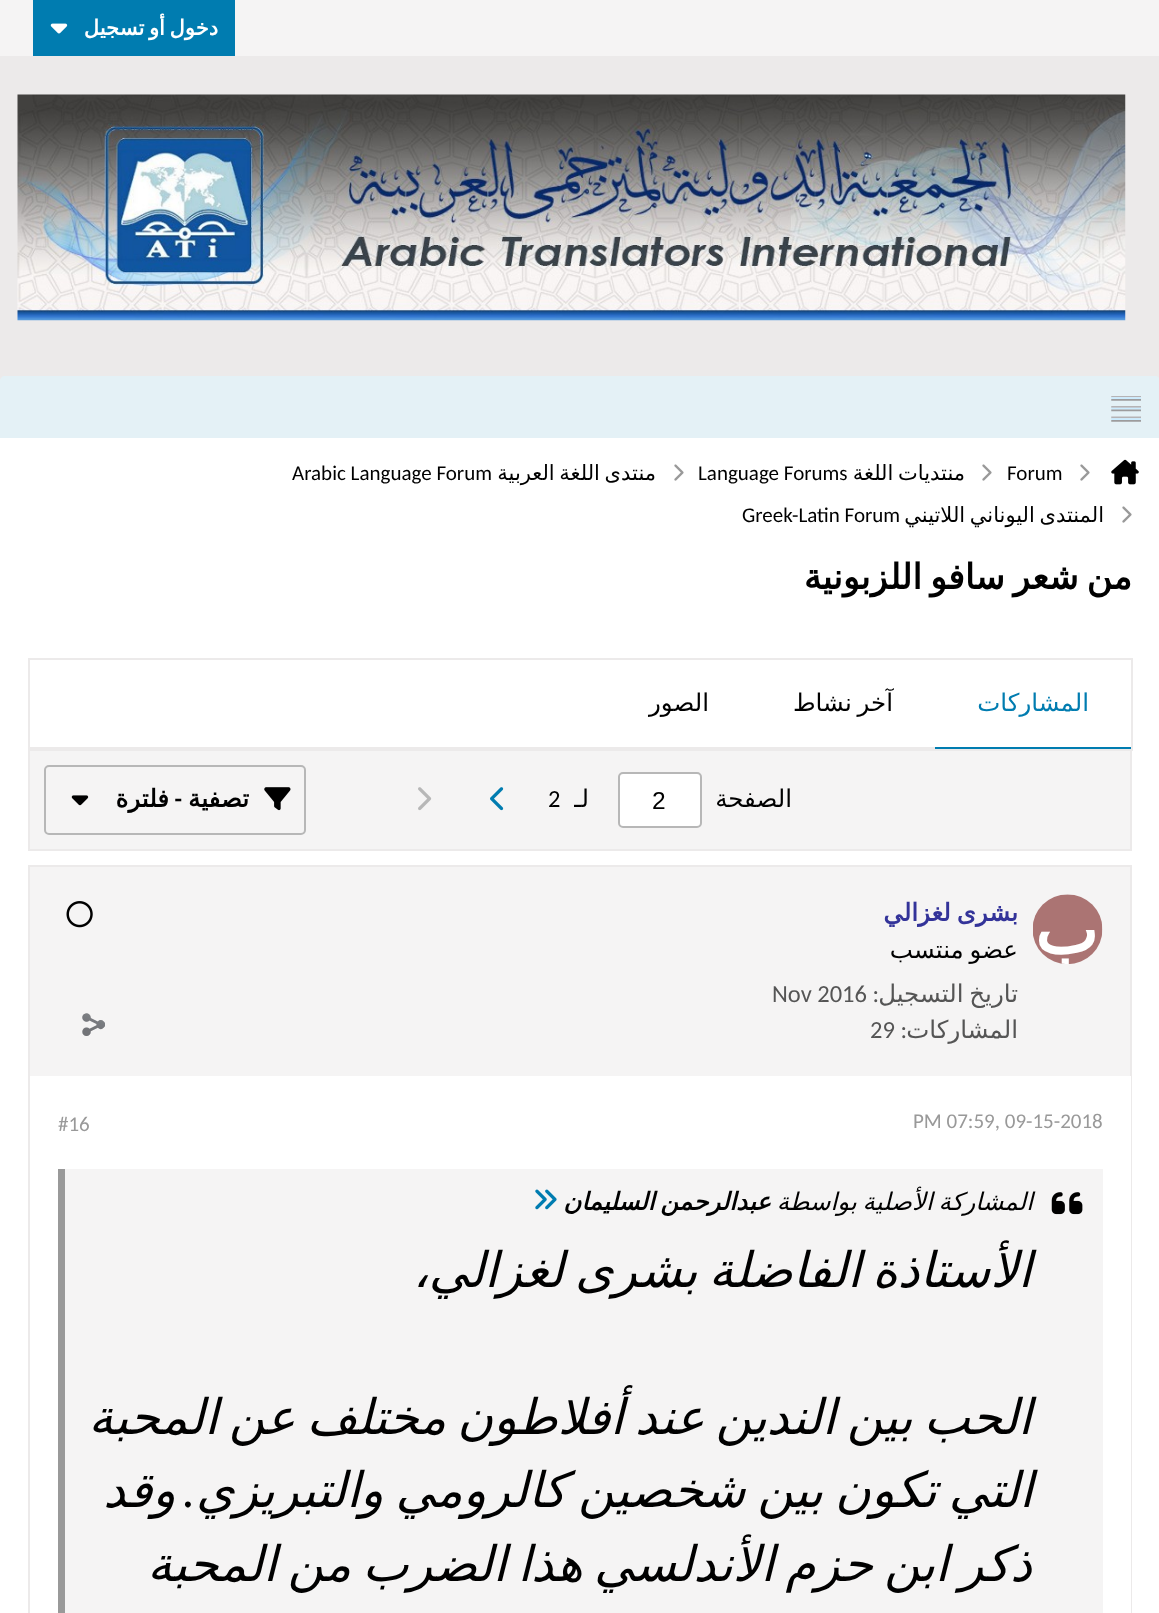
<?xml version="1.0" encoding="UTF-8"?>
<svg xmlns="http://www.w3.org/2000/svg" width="1159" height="1613">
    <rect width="100%" height="100%" fill="#ECEAEA"/>
    <rect x="0" y="0" width="1159" height="56" fill="#F5F4F4"/>
    <rect x="33" y="0" width="202" height="56" fill="#007CB0"/>
    <text x="218" y="35" word-spacing="-2" font-family="DejaVu Sans" font-size="21" font-weight="700" direction="rtl" fill="#FFFFFF">دخول أو تسجيل</text>
    <image x="50" y="23" width="18" height="11" href="img_01.png"/>
    <image x="17" y="94" width="1109" height="227" href="img_02.png"/>
    <path d="M 5 376 H 1155 C 1158 376 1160 378 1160 381 V 438 H 0 V 381 C 0 378 2 376 5 376 Z" fill="#E4F1F6"/>
    <image x="1111" y="396" width="30" height="26" href="img_03.png"/>
    <rect x="0" y="438" width="1159" height="1175" fill="#FFFFFF"/>
    <image x="1111" y="459" width="28" height="26" href="img_04.png"/>
    <image x="1080" y="464" width="10" height="17" href="img_05.png"/>
    <text x="1007" y="480" font-family="Carlito" font-size="21" fill="#000000">Forum</text>
    <image x="982" y="464" width="10" height="17" href="img_05.png"/>
    <text x="965" y="480" word-spacing="-2" font-family="DejaVu Sans" font-size="21" direction="rtl" fill="#000000">منتديات اللغة</text>
    <text x="698" y="480" font-family="Carlito" font-size="21" fill="#000000">Language Forums</text>
    <image x="674" y="464" width="10" height="17" href="img_05.png"/>
    <text x="656" y="480" word-spacing="-2" font-family="DejaVu Sans" font-size="21" direction="rtl" fill="#000000">منتدى اللغة العربية</text>
    <text x="292" y="480" font-family="Carlito" font-size="21" fill="#000000">Arabic Language Forum</text>
    <image x="1122" y="506" width="10" height="17" href="img_05.png"/>
    <text x="1104" y="522" word-spacing="-2" font-family="DejaVu Sans" font-size="21" direction="rtl" fill="#000000">المنتدى اليوناني اللاتيني</text>
    <text x="742" y="522" font-family="Carlito" font-size="21" fill="#000000">Greek-Latin Forum</text>
    <text x="1132" y="589" word-spacing="-3" font-family="DejaVu Sans" font-size="35" font-weight="700" direction="rtl" fill="#000000">من شعر سافو اللزبونية</text>
    <rect x="28" y="658" width="1104" height="2" fill="#ECEAEA"/>
    <rect x="1131" y="658" width="2" height="93" fill="#ECEAEA"/>
    <rect x="28" y="747" width="1104" height="2" fill="#ECEAEA"/>
    <rect x="28" y="658" width="2" height="93" fill="#ECEAEA"/>
    <rect x="935" y="747" width="196" height="2" fill="#007CB0"/>
    <text x="1089" y="711" font-family="DejaVu Sans" font-size="24.5" direction="rtl" fill="#007CB0">المشاركات</text>
    <text x="893" y="711" word-spacing="-2" font-family="DejaVu Sans" font-size="24.5" direction="rtl" fill="#000000">آخر نشاط</text>
    <text x="709" y="711" font-family="DejaVu Sans" font-size="24.5" direction="rtl" fill="#000000">الصور</text>
    <rect x="29" y="750" width="1102" height="100" fill="#F5F4F4" stroke="#ECEAEA" stroke-width="2"/>
    <text x="792" y="807" font-family="DejaVu Sans" font-size="24.5" direction="rtl" fill="#000000">الصفحة</text>
    <rect x="619" y="773" width="82" height="54" rx="4" fill="#FFFFFF" stroke="#B7B7B7" stroke-width="2"/>
    <text x="652" y="809" font-family="Liberation Sans" font-size="24.5" fill="#000000">2</text>
    <text x="589" y="807" font-family="DejaVu Sans" font-size="24.5" direction="rtl" fill="#000000">لـ</text>
    <text x="548" y="807" font-family="Carlito" font-size="24.5" fill="#000000">2</text>
    <image x="490" y="787" width="14" height="24" href="img_06.png"/>
    <image x="418" y="787" width="14" height="24" href="img_07.png"/>
    <rect x="45" y="766" width="260" height="68" rx="4" fill="none" stroke="#B7B7B7" stroke-width="2"/>
    <image x="264" y="787" width="27" height="24" href="img_08.png"/>
    <text x="249" y="807" font-family="DejaVu Sans" font-size="24.5" font-weight="700" direction="rtl" fill="#000000">تصفية</text>
    <text x="182" y="807" font-family="Carlito" font-size="24.5" font-weight="700" direction="rtl" fill="#000000">-</text>
    <text x="169" y="807" font-family="DejaVu Sans" font-size="24.5" font-weight="700" direction="rtl" fill="#000000">فلترة</text>
    <image x="71" y="795" width="18" height="11" href="img_09.png"/>
    <rect x="30" y="867" width="1100" height="209" fill="#F5F4F4"/>
    <rect x="29" y="866" width="1102" height="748" fill="none" stroke="#ECEAEA" stroke-width="2"/>
    <image x="1033" y="894" width="70" height="70" href="img_10.png"/>
    <text x="1018" y="921" word-spacing="-2" font-family="DejaVu Sans" font-size="24.5" font-weight="700" direction="rtl" fill="#333399">بشرى لغزالي</text>
    <text x="1018" y="958" word-spacing="-2" font-family="DejaVu Sans" font-size="24.5" direction="rtl" fill="#000000">عضو منتسب</text>
    <text x="1018" y="1002" word-spacing="-2" font-family="DejaVu Sans" font-size="24.5" direction="rtl" fill="#555555">تاريخ التسجيل</text>
    <text x="879" y="1002" font-family="Carlito" font-size="24.5" direction="rtl" fill="#555555">:</text>
    <text x="772" y="1002" font-family="Carlito" font-size="24.5" fill="#555555">Nov 2016</text>
    <text x="1018" y="1038" font-family="DejaVu Sans" font-size="24.5" direction="rtl" fill="#555555">المشاركات</text>
    <text x="907" y="1038" font-family="Carlito" font-size="24.5" direction="rtl" fill="#555555">:</text>
    <text x="870" y="1038" font-family="Carlito" font-size="24.5" fill="#555555">29</text>
    <image x="82" y="1013" width="23" height="23" href="img_11.png"/>
    <image x="66" y="901" width="27" height="27" href="img_12.png"/>
    <rect x="1130" y="1076" width="1" height="537" fill="#FFFFFF"/>
    <text x="913" y="1128" font-family="Carlito" font-size="21" fill="#999999">PM 07:59, 09-15-2018</text>
    <text x="58" y="1131" font-family="Carlito" font-size="21" fill="#999999">#16</text>
    <rect x="65" y="1169" width="1038" height="444" fill="#F5F4F4"/>
    <image x="1051" y="1192" width="32" height="23" href="img_13.png"/>
    <text x="1033" y="1210" word-spacing="-2" font-family="DejaVu Sans" font-size="24.5" font-style="italic" direction="rtl" fill="#000000">المشاركة الأصلية بواسطة</text>
    <text x="771" y="1210" word-spacing="-2" font-family="DejaVu Sans" font-size="24.5" font-weight="700" font-style="italic" direction="rtl" fill="#000000">عبدالرحمن السليمان</text>
    <image x="535" y="1189" width="22" height="21" href="img_14.png"/>
    <text x="1032" y="1287" word-spacing="-4.5" font-family="DejaVu Sans" font-size="49" font-style="italic" direction="rtl" fill="#000000">الأستاذة الفاضلة بشرى لغزالي،</text>
    <text x="1032" y="1434" word-spacing="-4.5" font-family="DejaVu Sans" font-size="49" font-style="italic" direction="rtl" fill="#000000">الحب بين الندين عند أفلاطون مختلف عن المحبة</text>
    <text x="1033" y="1507" word-spacing="-3.75" font-family="DejaVu Sans" font-size="49" font-style="italic" direction="rtl" fill="#000000">التي تكون بين شخصين كالرومي والتبريزي</text>
    <text x="195" y="1507" font-family="Carlito" font-size="49" font-style="italic" direction="rtl" fill="#000000">.</text>
    <text x="176" y="1507" font-family="DejaVu Sans" font-size="49" font-style="italic" direction="rtl" fill="#000000">وقد</text>
    <text x="1032" y="1581" word-spacing="-4.5" font-family="DejaVu Sans" font-size="49" font-style="italic" direction="rtl" fill="#000000">ذكر ابن حزم الأندلسي هذا الضرب من المحبة</text>
    <rect x="58" y="1169" width="7" height="444" fill="#999999"/>
</svg>
